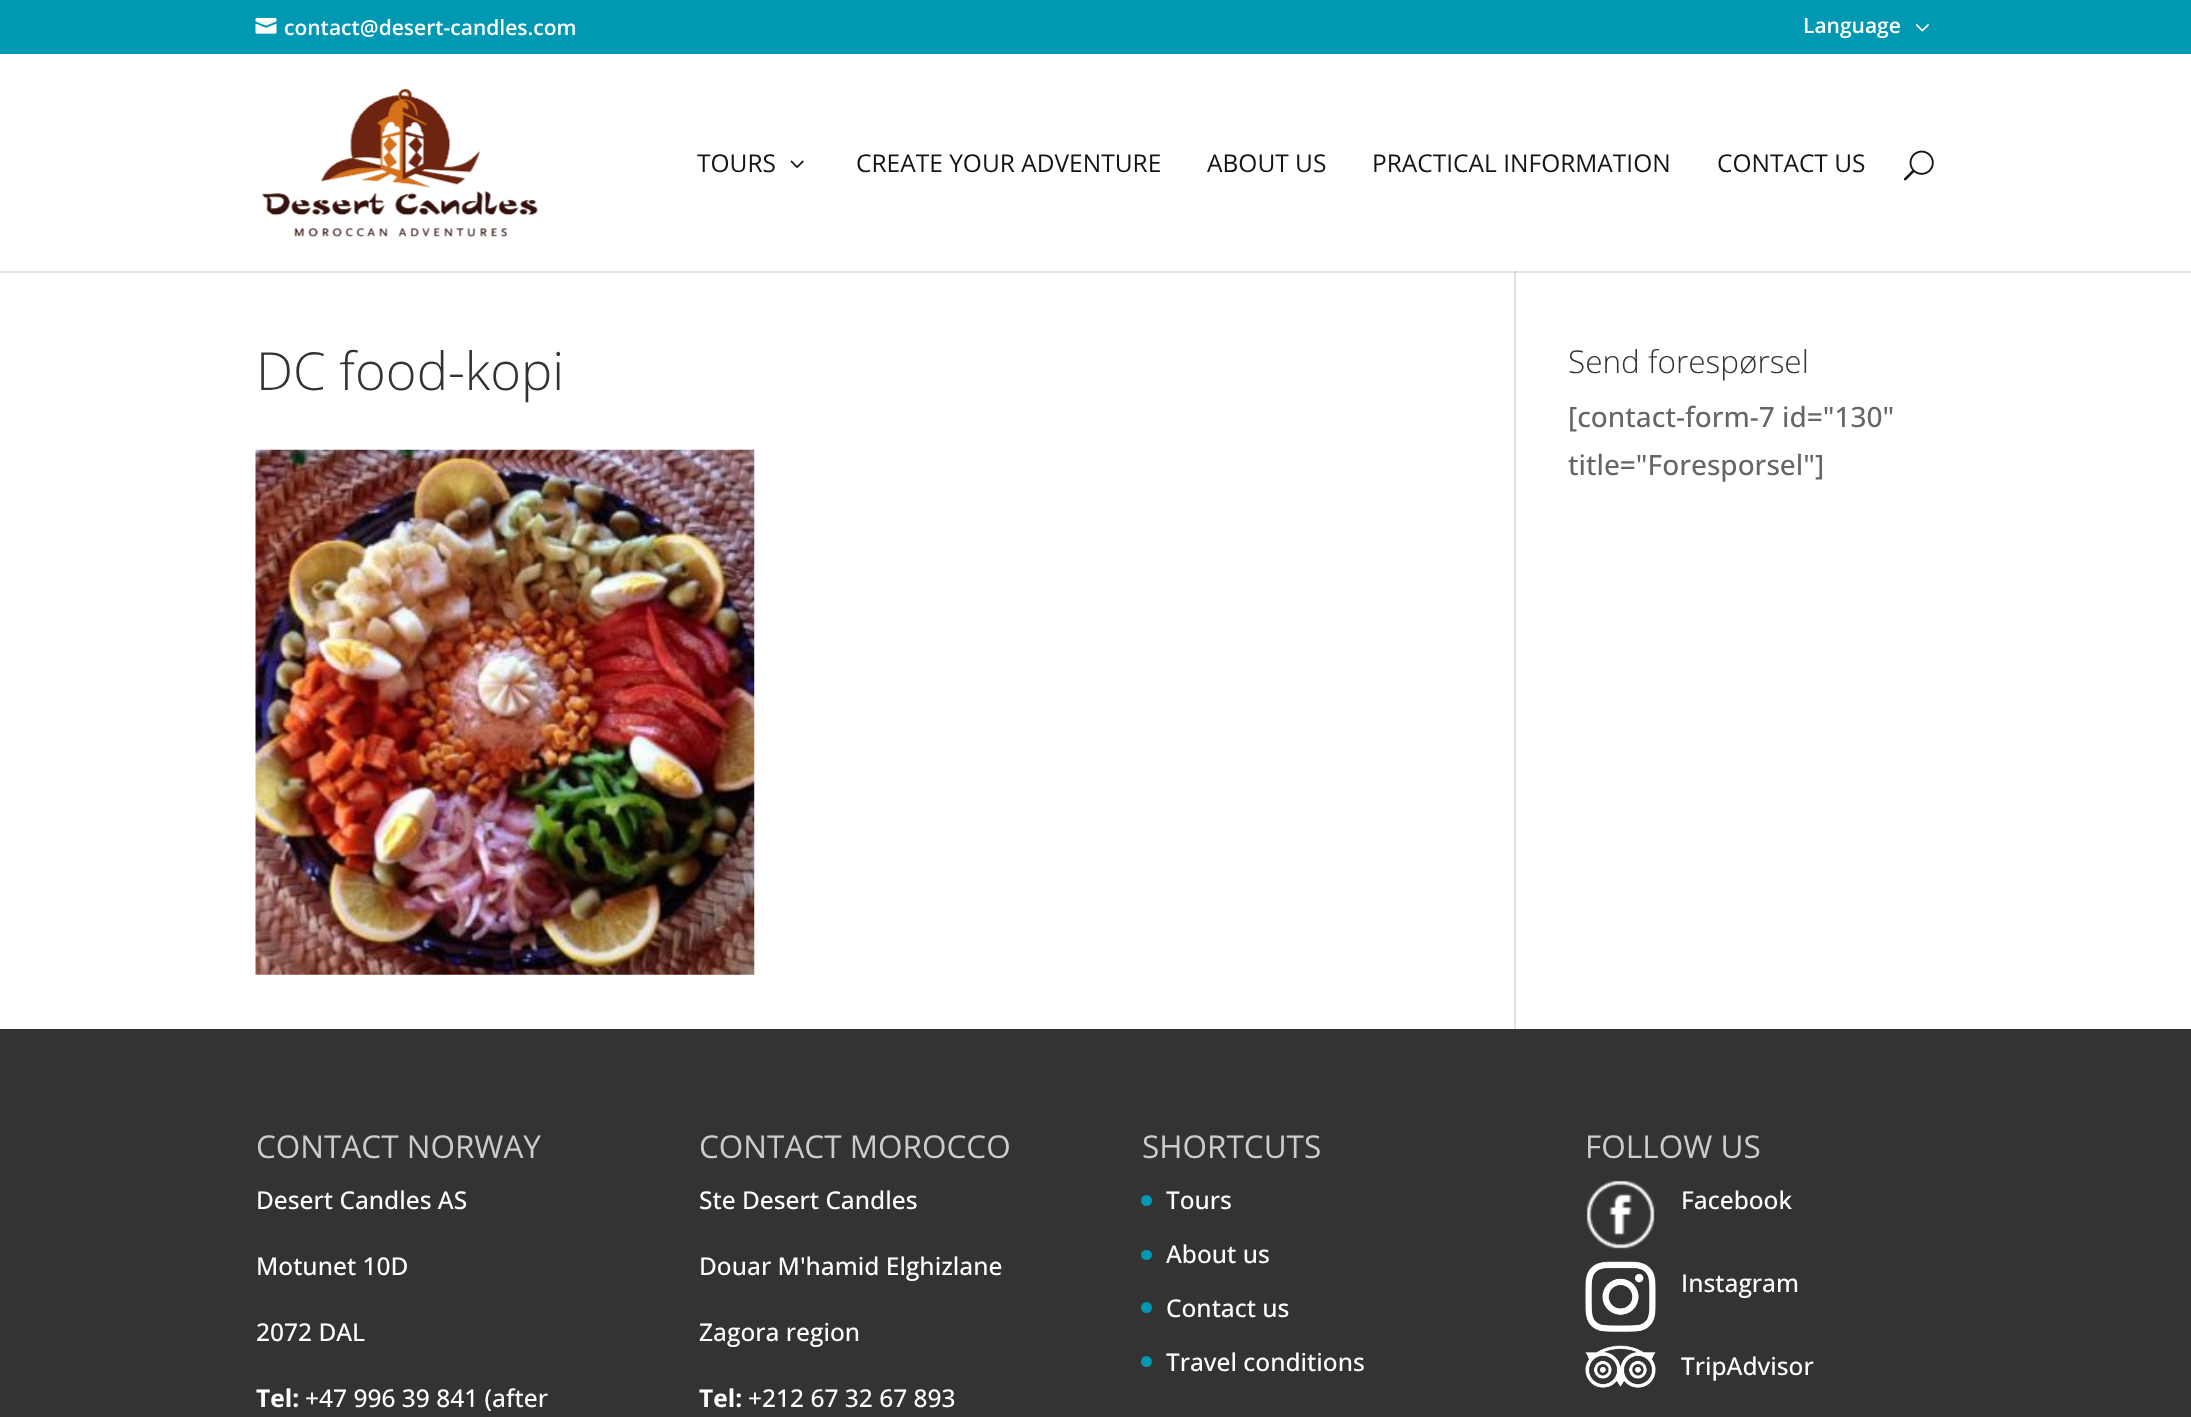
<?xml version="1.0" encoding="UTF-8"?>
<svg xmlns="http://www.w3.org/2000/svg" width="2191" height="1417">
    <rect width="100%" height="100%" fill="#FFFFFF"/>
    <rect x="0" y="271" width="2191" height="2" fill="#E6E6E6"/>
    <rect x="0" y="0" width="2191" height="54" fill="#0098B2"/>
    <image x="255" y="17" width="22" height="17" href="img_01.png"/>
    <text x="284" y="35" font-family="Open Sans" font-size="21" font-weight="600" fill="#FFFFFF">contact@desert-candles.com</text>
    <text x="1803" y="33" font-family="Open Sans" font-size="21" font-weight="600" fill="#FFFFFF">Language</text>
    <image x="1915" y="24" width="14" height="8" href="img_02.png"/>
    <image x="262" y="89" width="276" height="148" href="img_03.png"/>
    <text x="697" y="172" font-family="Open Sans" font-size="24.5" fill="#141414">TOURS</text>
    <image x="790" y="160" width="14" height="8" href="img_04.png"/>
    <text x="856" y="172" font-family="Open Sans" font-size="24.5" fill="#141414">CREATE YOUR ADVENTURE</text>
    <text x="1207" y="172" font-family="Open Sans" font-size="24.5" fill="#141414">ABOUT US</text>
    <text x="1372" y="172" font-family="Open Sans" font-size="24.5" fill="#141414">PRACTICAL INFORMATION</text>
    <text x="1717" y="172" font-family="Open Sans" font-size="24.5" fill="#141414">CONTACT US</text>
    <image x="1903" y="150" width="31" height="31" href="img_05.png"/>
    <rect x="1514" y="273" width="2" height="756" fill="#E2E2E2"/>
    <rect x="1514" y="271" width="2" height="2" fill="#CBCBCB"/>
    <text x="256" y="390" font-family="Open Sans" font-size="52.5" font-weight="300" fill="#333333">DC food-kopi</text>
    <image x="255" y="449" width="500" height="526" href="img_06.png"/>
    <text x="1568" y="373" font-family="Open Sans" font-size="31.5" font-weight="300" fill="#333333">Send forespørsel</text>
    <text font-family="Open Sans" font-size="28" font-weight="500" fill="#666666">
        <tspan x="1568" y="427">[contact-form-7 id="130"</tspan>
        <tspan x="1568" y="475">title="Foresporsel"]</tspan>
    </text>
    <rect x="0" y="1029" width="2191" height="388" fill="#333333"/>
    <text x="256" y="1158" font-family="Open Sans" font-size="31.5" fill="#CCCCCC">CONTACT NORWAY</text>
    <text x="256" y="1209" font-family="Open Sans" font-size="24.5" font-weight="500" fill="#FFFFFF">Desert Candles AS</text>
    <text x="256" y="1275" font-family="Open Sans" font-size="24.5" font-weight="500" fill="#FFFFFF">Motunet 10D</text>
    <text x="256" y="1341" font-family="Open Sans" font-size="24.5" font-weight="500" fill="#FFFFFF">2072 DAL</text>
    <text x="256" y="1407" font-family="Open Sans" font-size="24.5" font-weight="700" fill="#FFFFFF">Tel:</text>
    <text x="305" y="1407" font-family="Open Sans" font-size="24.5" font-weight="500" fill="#FFFFFF">+47 996 39 841 (after</text>
    <text x="699" y="1158" font-family="Open Sans" font-size="31.5" fill="#CCCCCC">CONTACT MOROCCO</text>
    <text x="699" y="1209" font-family="Open Sans" font-size="24.5" font-weight="500" fill="#FFFFFF">Ste Desert Candles</text>
    <text x="699" y="1275" font-family="Open Sans" font-size="24.5" font-weight="500" fill="#FFFFFF">Douar M'hamid Elghizlane</text>
    <text x="699" y="1341" font-family="Open Sans" font-size="24.5" font-weight="500" fill="#FFFFFF">Zagora region</text>
    <text x="699" y="1407" font-family="Open Sans" font-size="24.5" font-weight="700" fill="#FFFFFF">Tel:</text>
    <text x="748" y="1407" font-family="Open Sans" font-size="24.5" font-weight="500" fill="#FFFFFF">+212 67 32 67 893</text>
    <text x="1142" y="1158" font-family="Open Sans" font-size="31.5" fill="#CCCCCC">SHORTCUTS</text>
    <circle cx="1146.5" cy="1200.5" r="5.5" fill="#0098B2"/>
    <text x="1166" y="1209" font-family="Open Sans" font-size="24.5" font-weight="500" fill="#FFFFFF">Tours</text>
    <rect x="1141" y="1250" width="11" height="10" rx="5" fill="#0098B2"/>
    <text x="1166" y="1263" font-family="Open Sans" font-size="24.5" font-weight="500" fill="#FFFFFF">About us</text>
    <circle cx="1146.5" cy="1307.5" r="5.5" fill="#0098B2"/>
    <text x="1166" y="1317" font-family="Open Sans" font-size="24.5" font-weight="500" fill="#FFFFFF">Contact us</text>
    <circle cx="1146.5" cy="1361.5" r="5.5" fill="#0098B2"/>
    <text x="1166" y="1371" font-family="Open Sans" font-size="24.5" font-weight="500" fill="#FFFFFF">Travel conditions</text>
    <text x="1585" y="1158" font-family="Open Sans" font-size="31.5" fill="#CCCCCC">FOLLOW US</text>
    <image x="1586" y="1180" width="69" height="69" href="img_07.png"/>
    <text x="1681" y="1209" font-family="Open Sans" font-size="24.5" font-weight="500" fill="#FFFFFF">Facebook</text>
    <image x="1585" y="1261" width="71" height="71" href="img_08.png"/>
    <text x="1681" y="1292" font-family="Open Sans" font-size="24.5" font-weight="500" fill="#FFFFFF">Instagram</text>
    <image x="1585" y="1345" width="71" height="43" href="img_09.png"/>
    <text x="1681" y="1375" font-family="Open Sans" font-size="24.5" font-weight="500" fill="#FFFFFF">TripAdvisor</text>
</svg>
